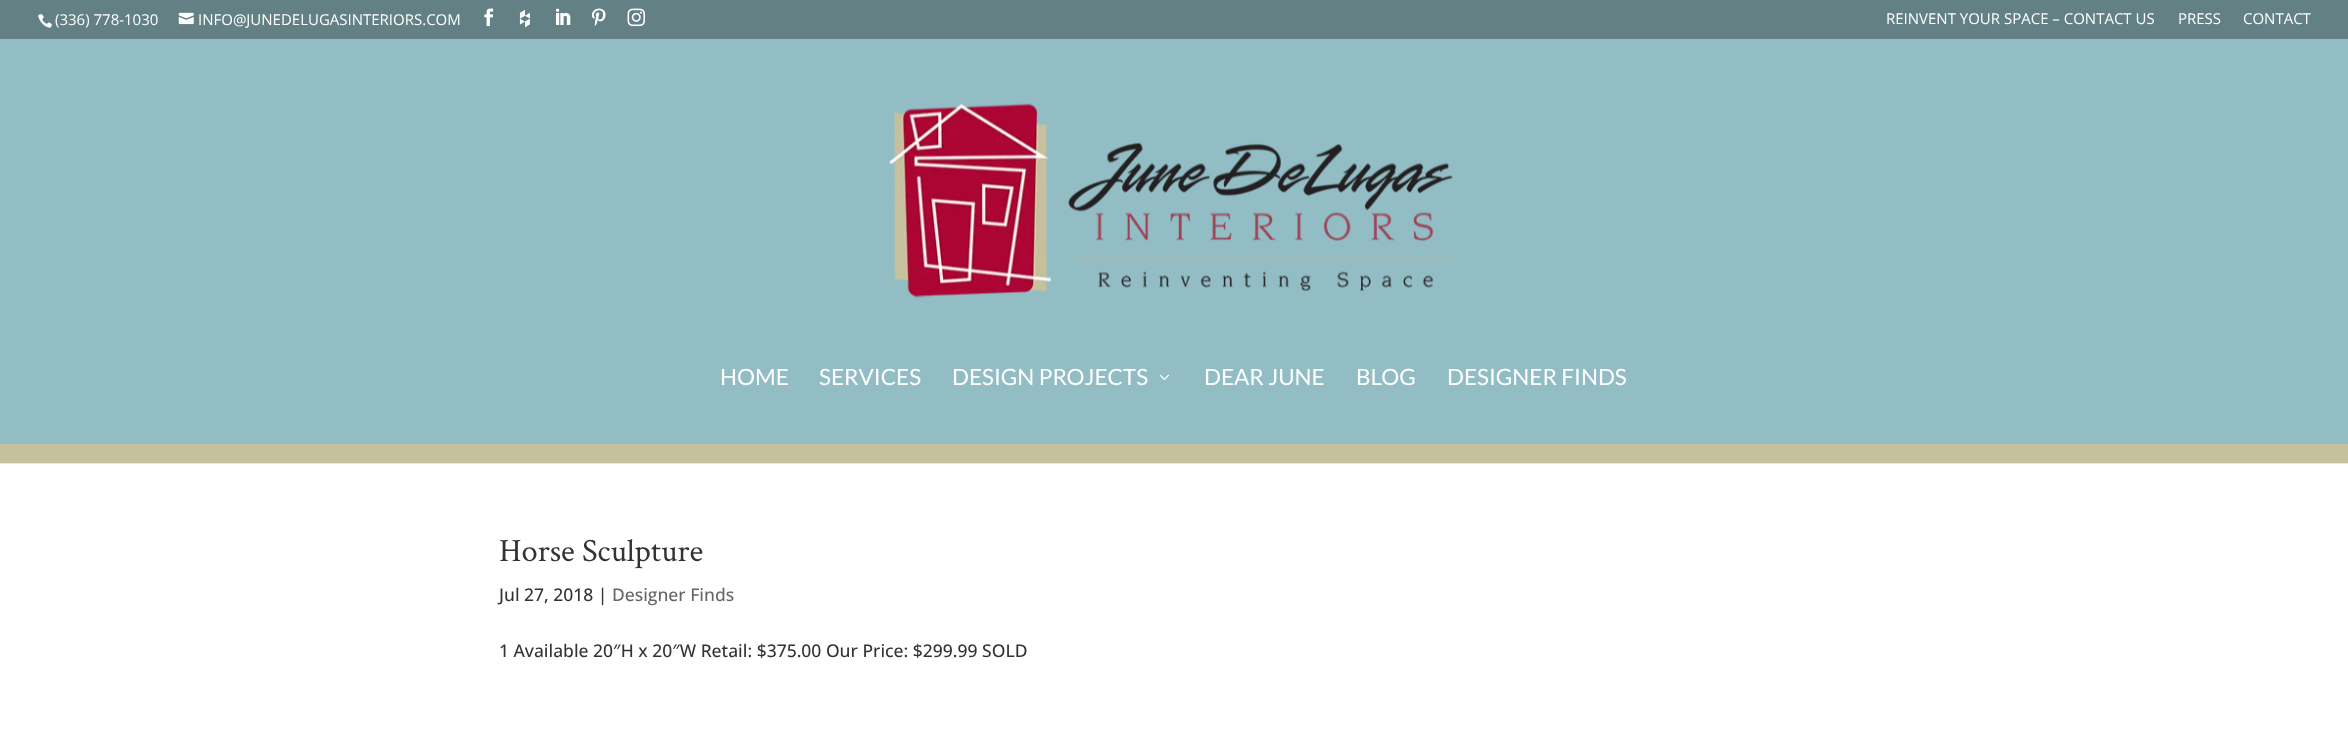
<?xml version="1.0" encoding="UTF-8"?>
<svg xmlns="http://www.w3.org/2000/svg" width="2348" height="746">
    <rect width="100%" height="100%" fill="#FFFFFF"/>
    <rect x="0" y="0" width="2348" height="39" fill="#638085"/>
    <image x="38" y="14" width="14" height="14" href="img_01.png"/>
    <text x="55" y="25" font-family="Open Sans" font-size="15" fill="#FFFFFF">(336) 778-1030</text>
    <image x="178" y="12" width="16" height="13" href="img_02.png"/>
    <text x="198" y="25" font-family="Open Sans" font-size="15" fill="#FFFFFF">INFO@JUNEDELUGASINTERIORS.COM</text>
    <image x="484" y="8" width="10" height="19" href="img_03.png"/>
    <image x="519" y="9" width="11" height="19" href="img_04.png"/>
    <image x="555" y="8" width="16" height="17" href="img_05.png"/>
    <image x="592" y="8" width="14" height="18" href="img_06.png"/>
    <image x="627" y="8" width="18" height="19" href="img_07.png"/>
    <text x="1886" y="24" font-family="Open Sans" font-size="15" fill="#FFFFFF">REINVENT YOUR SPACE – CONTACT US</text>
    <text x="2178" y="24" font-family="Open Sans" font-size="15" fill="#FFFFFF">PRESS</text>
    <text x="2243" y="24" font-family="Open Sans" font-size="15" fill="#FFFFFF">CONTACT</text>
    <path d="M 0 462 V 464 H 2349 V 40 V 462 Z" fill="#E6E6E6"/>
    <rect x="0" y="39" width="2348" height="405" fill="#92BDC4"/>
    <rect x="0" y="444" width="2348" height="19" fill="#C5C19D"/>
    <image x="889" y="103" width="564" height="195" href="img_08.png"/>
    <text x="720" y="385" font-family="Lato" font-size="22.5" fill="#FFFFFF">HOME</text>
    <text x="819" y="385" font-family="Lato" font-size="22.5" fill="#FFFFFF">SERVICES</text>
    <text x="952" y="385" font-family="Lato" font-size="22.5" fill="#FFFFFF">DESIGN PROJECTS</text>
    <image x="1159" y="374" width="10" height="6" href="img_09.png"/>
    <text x="1204" y="385" font-family="Lato" font-size="22.5" fill="#FFFFFF">DEAR JUNE</text>
    <text x="1356" y="385" font-family="Lato" font-size="22.5" fill="#FFFFFF">BLOG</text>
    <text x="1447" y="385" font-family="Lato" font-size="22.5" fill="#FFFFFF">DESIGNER FINDS</text>
    <text x="499" y="561" font-family="Crimson Text" font-size="32.5" fill="#333333">Horse Sculpture</text>
    <text x="499" y="601" font-family="Open Sans" font-size="17.5" font-weight="500" fill="#333333">Jul 27, 2018 |</text>
    <text x="612" y="601" font-family="Open Sans" font-size="17.5" font-weight="500" fill="#666666">Designer Finds</text>
    <text x="499" y="657" font-family="Open Sans" font-size="17.5" font-weight="500" fill="#333333">1 Available 20″H x 20″W Retail: $375.00 Our Price: $299.99 SOLD</text>
</svg>
